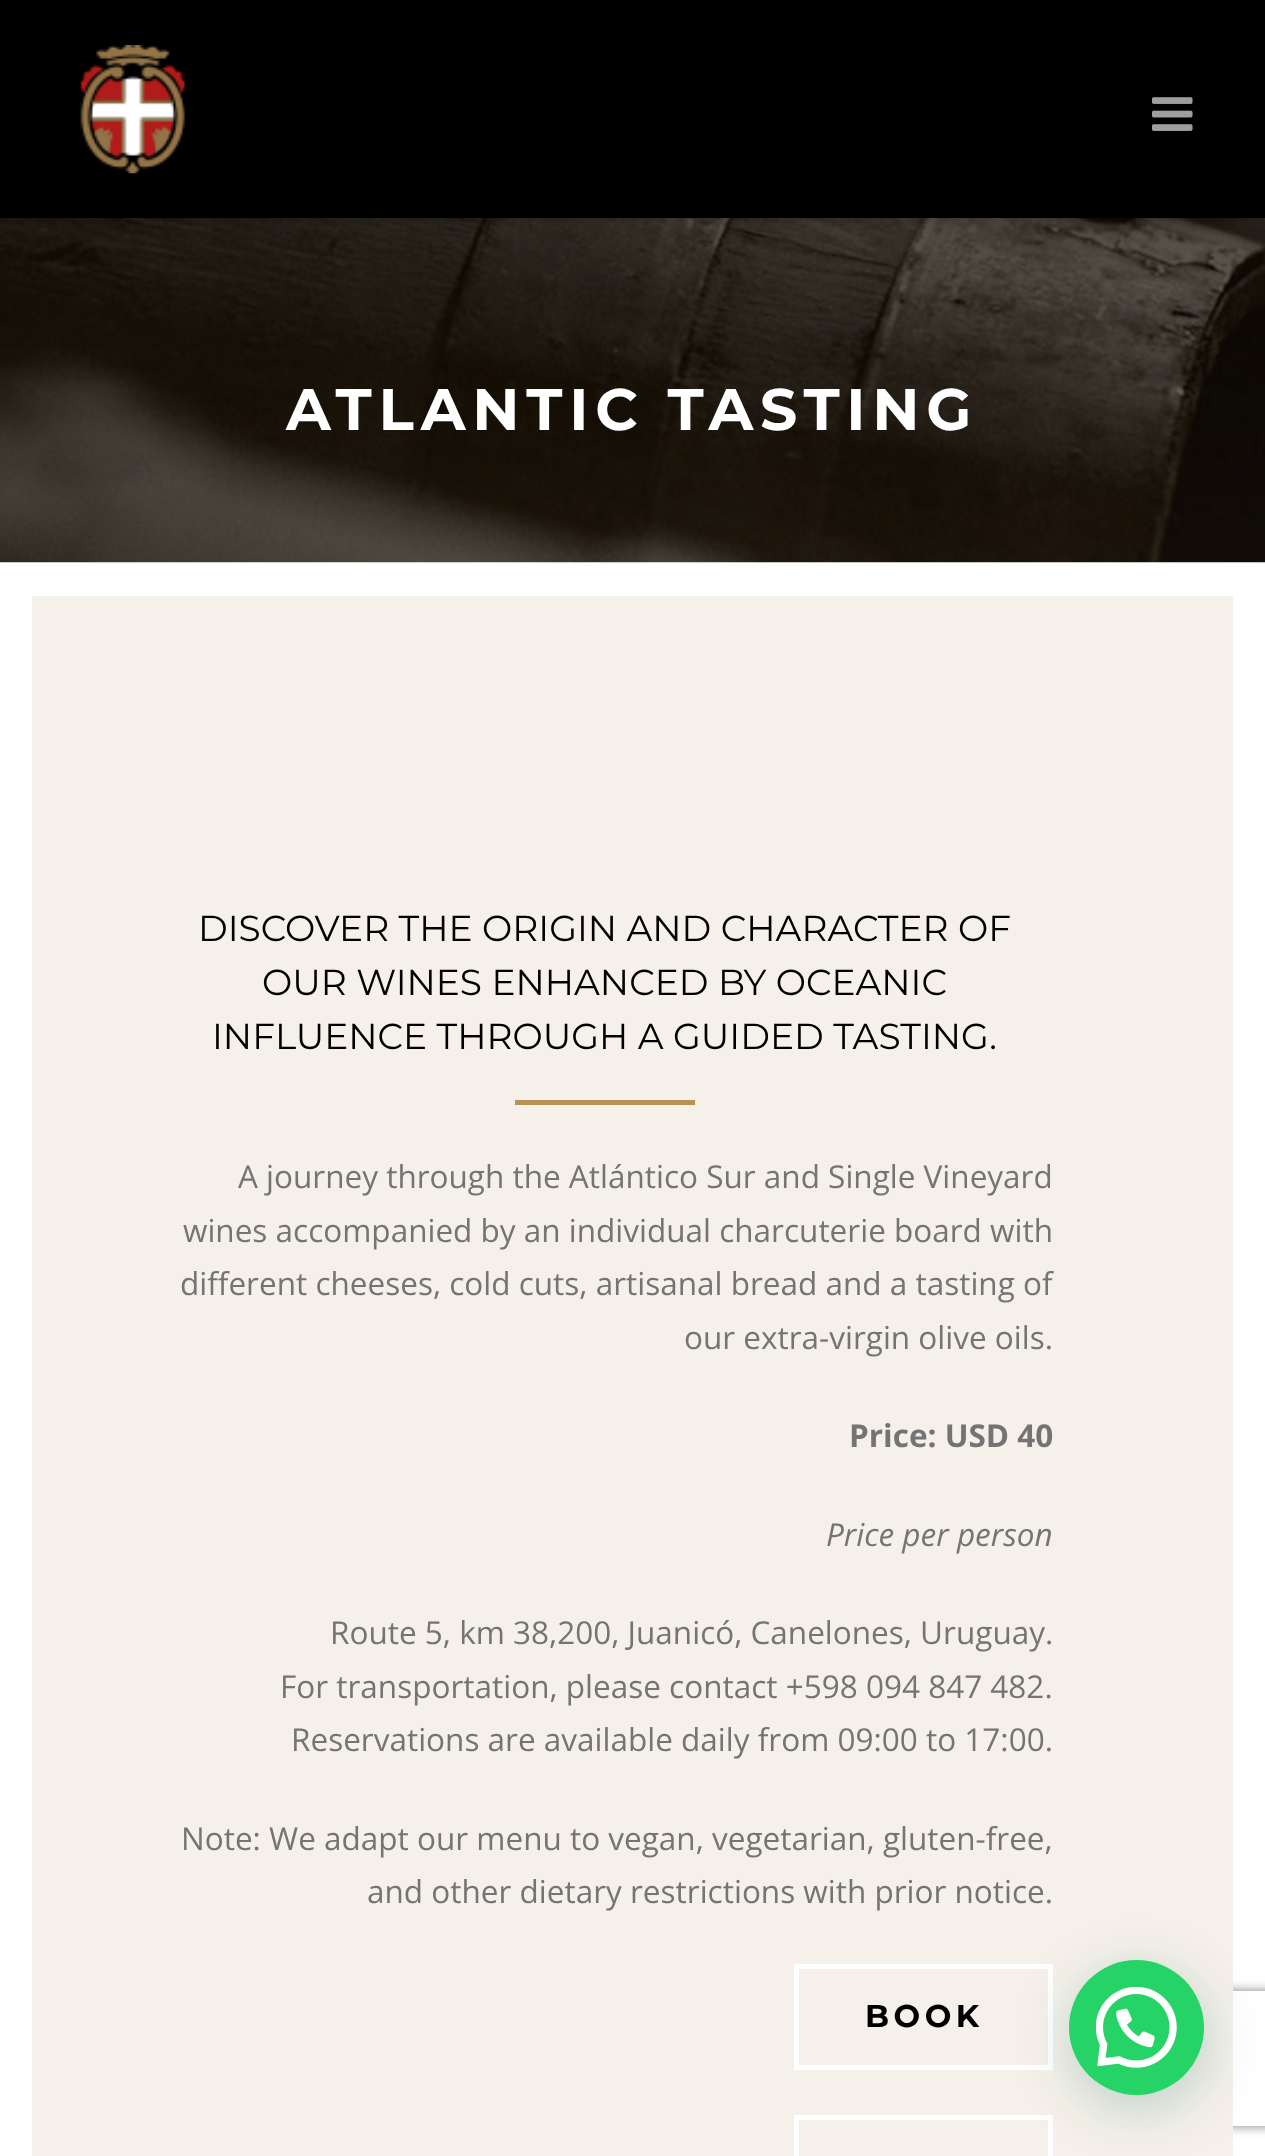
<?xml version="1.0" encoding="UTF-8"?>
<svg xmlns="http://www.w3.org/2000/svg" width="1265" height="2156">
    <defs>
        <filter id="blur1" x="-50%" y="-200%" width="200%" height="500%"><feGaussianBlur stdDeviation="3.5"/></filter>
        <clipPath id="clip1"><path d="M 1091 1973 H 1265 V 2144 H 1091 Z M 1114 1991 H 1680 C 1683 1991 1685 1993 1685 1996 V 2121 C 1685 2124 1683 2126 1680 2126 H 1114 C 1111 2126 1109 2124 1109 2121 V 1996 C 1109 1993 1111 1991 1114 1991 Z" clip-rule="evenodd"/></clipPath>
        <filter id="blur2" x="-50%" y="-200%" width="200%" height="500%"><feGaussianBlur stdDeviation="5.5"/></filter>
        <filter id="blur3" x="-50%" y="-200%" width="200%" height="500%"><feGaussianBlur stdDeviation="27"/></filter>
    </defs>
    <rect width="100%" height="100%" fill="#FFFFFF"/>
    <image x="0" y="218" width="1265" height="345" href="img_03.png"/>
    <rect x="0" y="2" width="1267" height="219" fill="#000000" fill-opacity="0.12" filter="url(#blur1)"/>
    <rect x="0" y="0" width="1265" height="218" fill="#000000"/>
    <image x="80" y="45" width="106" height="129" href="img_01.png"/>
    <image x="1152" y="97" width="41" height="34" href="img_02.png"/>
    <text x="286" y="430" font-family="Montserrat" font-size="58.5" font-weight="700" letter-spacing="6.75" fill="#FFFFFF">ATLANTIC TASTING</text>
    <g clip-path="url(#clip1)">
        <rect x="1109" y="1991" width="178" height="135" rx="5" fill="#808080" filter="url(#blur2)"/>
    </g>
    <rect x="32" y="596" width="1201" height="1560" fill="#F5F1EA"/>
    <text x="198" y="941" font-family="Montserrat" font-size="36" fill="#000000">DISCOVER THE ORIGIN AND CHARACTER OF</text>
    <text x="262" y="995" font-family="Montserrat" font-size="36" fill="#000000">OUR WINES ENHANCED BY OCEANIC</text>
    <text x="212" y="1049" font-family="Montserrat" font-size="36" fill="#000000">INFLUENCE THROUGH A GUIDED TASTING.</text>
    <rect x="515" y="1100" width="180" height="5" fill="#B89353"/>
    <text x="238" y="1188" font-family="Open Sans" font-size="31.5" fill="#747474">A journey through the Atlántico Sur and Single Vineyard</text>
    <text x="183" y="1242" font-family="Open Sans" font-size="31.5" fill="#747474">wines accompanied by an individual charcuterie board with</text>
    <text x="180" y="1295" font-family="Open Sans" font-size="31.5" fill="#747474">different cheeses, cold cuts, artisanal bread and a tasting of</text>
    <text x="684" y="1349" font-family="Open Sans" font-size="31.5" fill="#747474">our extra-virgin olive oils.</text>
    <text x="849" y="1447" font-family="Open Sans" font-size="31.5" font-weight="700" fill="#747474">Price: USD 40</text>
    <text x="826" y="1546" font-family="Open Sans" font-size="31.5" font-style="italic" fill="#747474">Price per person</text>
    <text x="330" y="1644" font-family="Open Sans" font-size="31.5" fill="#747474">Route 5, km 38,200, Juanicó, Canelones, Uruguay.</text>
    <text x="280" y="1698" font-family="Open Sans" font-size="31.5" fill="#747474">For transportation, please contact +598 094 847 482.</text>
    <text x="291" y="1751" font-family="Open Sans" font-size="31.5" fill="#747474">Reservations are available daily from 09:00 to 17:00.</text>
    <text x="181" y="1850" font-family="Open Sans" font-size="31.5" fill="#747474">Note: We adapt our menu to vegan, vegetarian, gluten-free,</text>
    <text x="367" y="1903" font-family="Open Sans" font-size="31.5" fill="#747474">and other dietary restrictions with prior notice.</text>
    <rect x="796.5" y="1966.5" width="254" height="101" fill="none" stroke="#FFFFFF" stroke-width="5"/>
    <text x="865" y="2027" font-family="Montserrat" font-size="31.5" font-weight="700" letter-spacing="4.5" fill="#000000">BOOK</text>
    <rect x="796.5" y="2117.5" width="254" height="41" fill="none" stroke="#FFFFFF" stroke-width="5"/>
    <rect x="1071" y="1973" width="135" height="135" rx="67.5" fill="#075E54" fill-opacity="0.24" filter="url(#blur3)"/>
    <circle cx="1136.5" cy="2027.5" r="67.5" fill="#25D366"/>
    <image x="1096" y="1987" width="81" height="81" href="img_04.png"/>
</svg>
